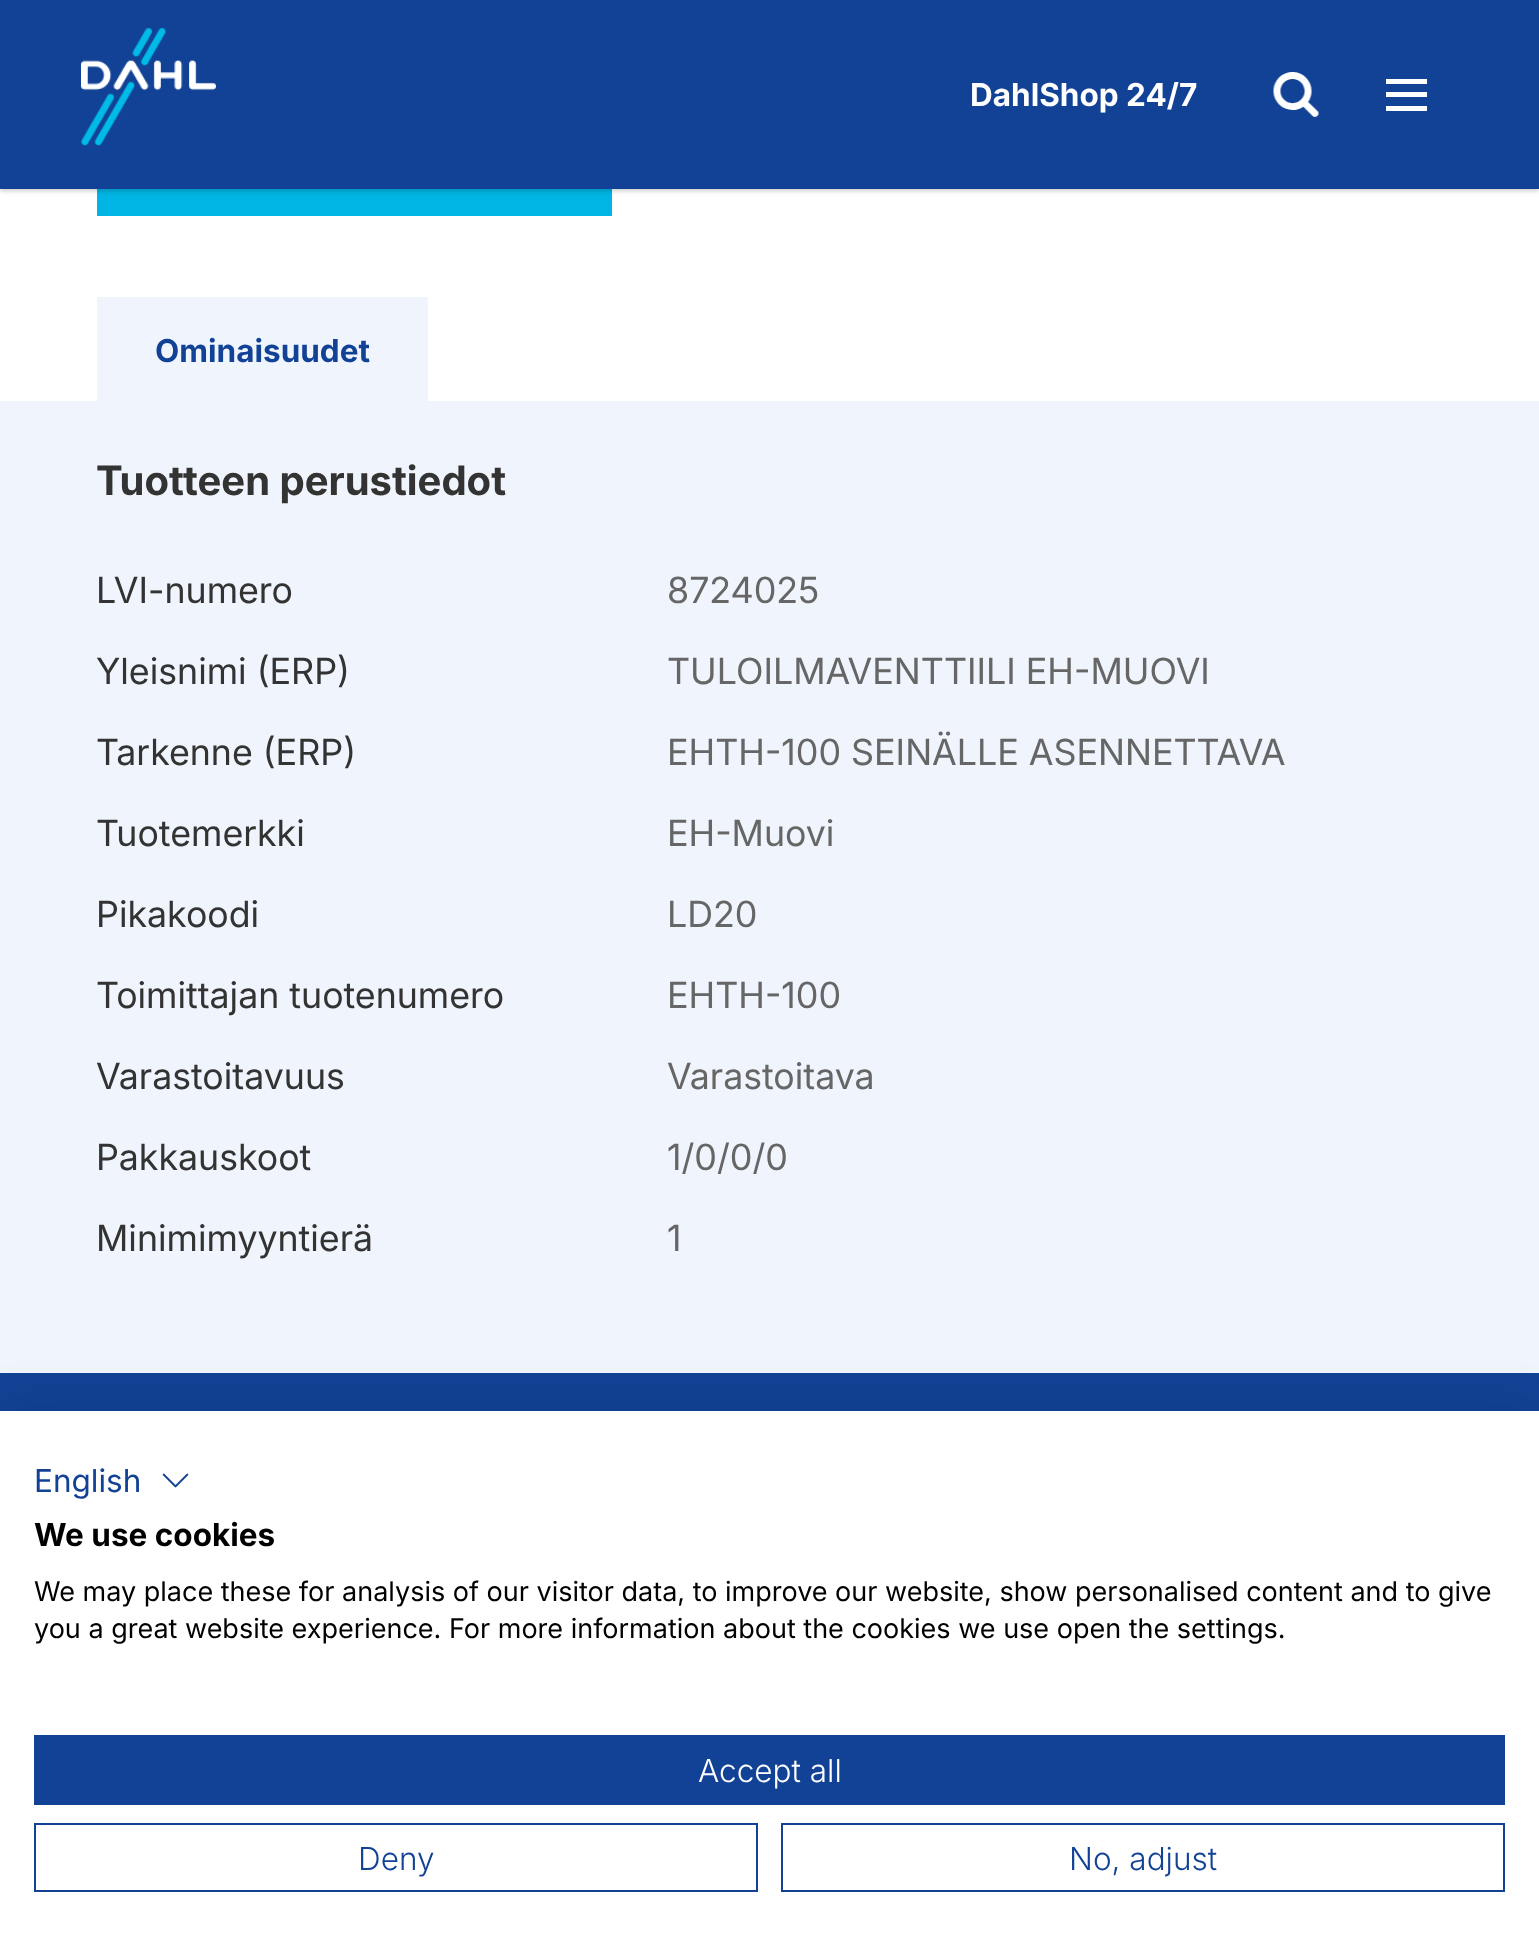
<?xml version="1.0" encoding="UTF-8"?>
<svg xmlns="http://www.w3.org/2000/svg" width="1539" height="1951">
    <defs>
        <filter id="blur1" x="-50%" y="-200%" width="200%" height="500%"><feGaussianBlur stdDeviation="2"/></filter>
        <filter id="blur2" x="-50%" y="-200%" width="200%" height="500%"><feGaussianBlur stdDeviation="27"/></filter>
    </defs>
    <rect width="100%" height="100%" fill="#FFFFFF"/>
    <rect x="97" y="189" width="515" height="27" fill="#00B4E3"/>
    <rect x="0" y="2" width="1539" height="189" fill="#000000" fill-opacity="0.2" filter="url(#blur1)"/>
    <rect x="0" y="0" width="1539" height="189" fill="#124295"/>
    <image x="81" y="28" width="135" height="118" href="img_01.png"/>
    <text x="970" y="106" font-family="'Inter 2'" font-size="31.5" font-weight="700" fill="#FFFFFF">DahlShop 24/7</text>
    <image x="1273" y="72" width="46" height="45" href="img_02.png"/>
    <rect x="1386" y="92" width="41" height="5" fill="#FFFFFF"/>
    <rect x="1386" y="79" width="41" height="5" fill="#FFFFFF"/>
    <rect x="1386" y="106" width="41" height="5" fill="#FFFFFF"/>
    <rect x="97" y="297" width="331" height="104" fill="#F0F5FD"/>
    <text x="155" y="362" font-family="'Inter 2'" font-size="31.5" font-weight="700" fill="#124295">Ominaisuudet</text>
    <rect x="0" y="401" width="1539" height="972" fill="#F0F5FD"/>
    <text x="96" y="495" font-family="Inter" font-size="40.5" font-weight="700" fill="#333333">Tuotteen perustiedot</text>
    <text x="96" y="603" font-family="Inter" font-size="36" fill="#333333">LVI-numero</text>
    <text x="667" y="603" font-family="Inter" font-size="36" fill="#666666">8724025</text>
    <text x="96" y="684" font-family="Inter" font-size="36" fill="#333333">Yleisnimi (ERP)</text>
    <text x="667" y="684" font-family="Inter" font-size="36" fill="#666666">TULOILMAVENTTIILI EH-MUOVI</text>
    <text x="96" y="765" font-family="Inter" font-size="36" fill="#333333">Tarkenne (ERP)</text>
    <text x="667" y="765" font-family="Inter" font-size="36" fill="#666666">EHTH-100 SEINÄLLE ASENNETTAVA</text>
    <text x="96" y="846" font-family="Inter" font-size="36" fill="#333333">Tuotemerkki</text>
    <text x="667" y="846" font-family="Inter" font-size="36" fill="#666666">EH-Muovi</text>
    <text x="96" y="927" font-family="Inter" font-size="36" fill="#333333">Pikakoodi</text>
    <text x="667" y="927" font-family="Inter" font-size="36" fill="#666666">LD20</text>
    <text x="96" y="1008" font-family="Inter" font-size="36" fill="#333333">Toimittajan tuotenumero</text>
    <text x="667" y="1008" font-family="Inter" font-size="36" fill="#666666">EHTH-100</text>
    <text x="96" y="1089" font-family="Inter" font-size="36" fill="#333333">Varastoitavuus</text>
    <text x="667" y="1089" font-family="Inter" font-size="36" fill="#666666">Varastoitava</text>
    <text x="96" y="1170" font-family="Inter" font-size="36" fill="#333333">Pakkauskoot</text>
    <text x="667" y="1170" font-family="Inter" font-size="36" fill="#666666">1/0/0/0</text>
    <text x="96" y="1251" font-family="Inter" font-size="36" fill="#333333">Minimimyyntierä</text>
    <text x="667" y="1251" font-family="Inter" font-size="36" fill="#666666">1</text>
    <rect x="0" y="1373" width="1539" height="38" fill="#124295"/>
    <rect x="0" y="1411" width="1539" height="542" fill="#000000" fill-opacity="0.1" filter="url(#blur2)"/>
    <rect x="0" y="1411" width="1539" height="540" fill="#FFFFFF"/>
    <text x="34" y="1492" font-family="'Inter 2'" font-size="31.5" fill="#124295">English</text>
    <image x="162" y="1473" width="27" height="15" href="img_03.png"/>
    <text x="34" y="1546" font-family="'Inter 2'" font-size="31.5" font-weight="700" fill="#000000">We use cookies</text>
    <text font-family="'Inter 2'" font-size="27" fill="#000000">
        <tspan x="34" y="1601">We may place these for analysis of our visitor data, to improve our website, show personalised content and to give</tspan>
        <tspan x="34" y="1638">you a great website experience. For more information about the cookies we use open the settings.</tspan>
    </text>
    <rect x="34" y="1735" width="1471" height="70" fill="#124295"/>
    <text x="698" y="1782" font-family="Inter" font-size="31.5" font-weight="300" fill="#FFFFFF">Accept all</text>
    <rect x="35" y="1824" width="722" height="67" fill="none" stroke="#124295" stroke-width="2"/>
    <text x="358" y="1870" font-family="Inter" font-size="31.5" font-weight="300" fill="#124295">Deny</text>
    <rect x="782" y="1824" width="722" height="67" fill="none" stroke="#124295" stroke-width="2"/>
    <text x="1069" y="1870" font-family="Inter" font-size="31.5" font-weight="300" fill="#124295">No, adjust</text>
</svg>
